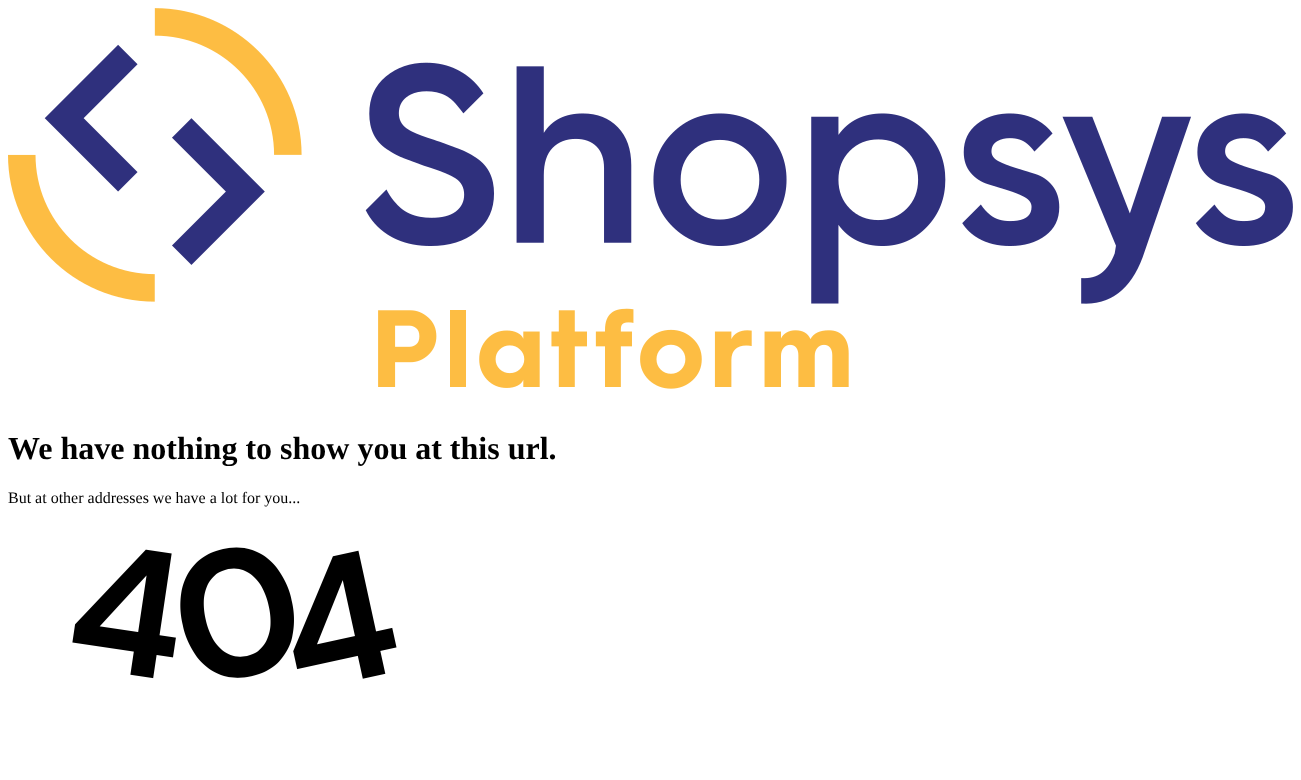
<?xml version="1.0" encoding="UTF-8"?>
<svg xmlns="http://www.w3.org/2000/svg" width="1301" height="780">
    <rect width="100%" height="100%" fill="#FFFFFF"/>
    <image x="8" y="8" width="1285" height="381" href="img_01.png"/>
    <text x="8" y="459" font-family="Liberation Serif" font-size="32" font-weight="700" fill="#000000">We have nothing to show you at this url.</text>
    <text x="8" y="503" font-family="Liberation Serif" font-size="16" fill="#000000">But at other addresses we have a lot for you...</text>
    <image x="72" y="547" width="325" height="132" href="img_02.png"/>
</svg>
